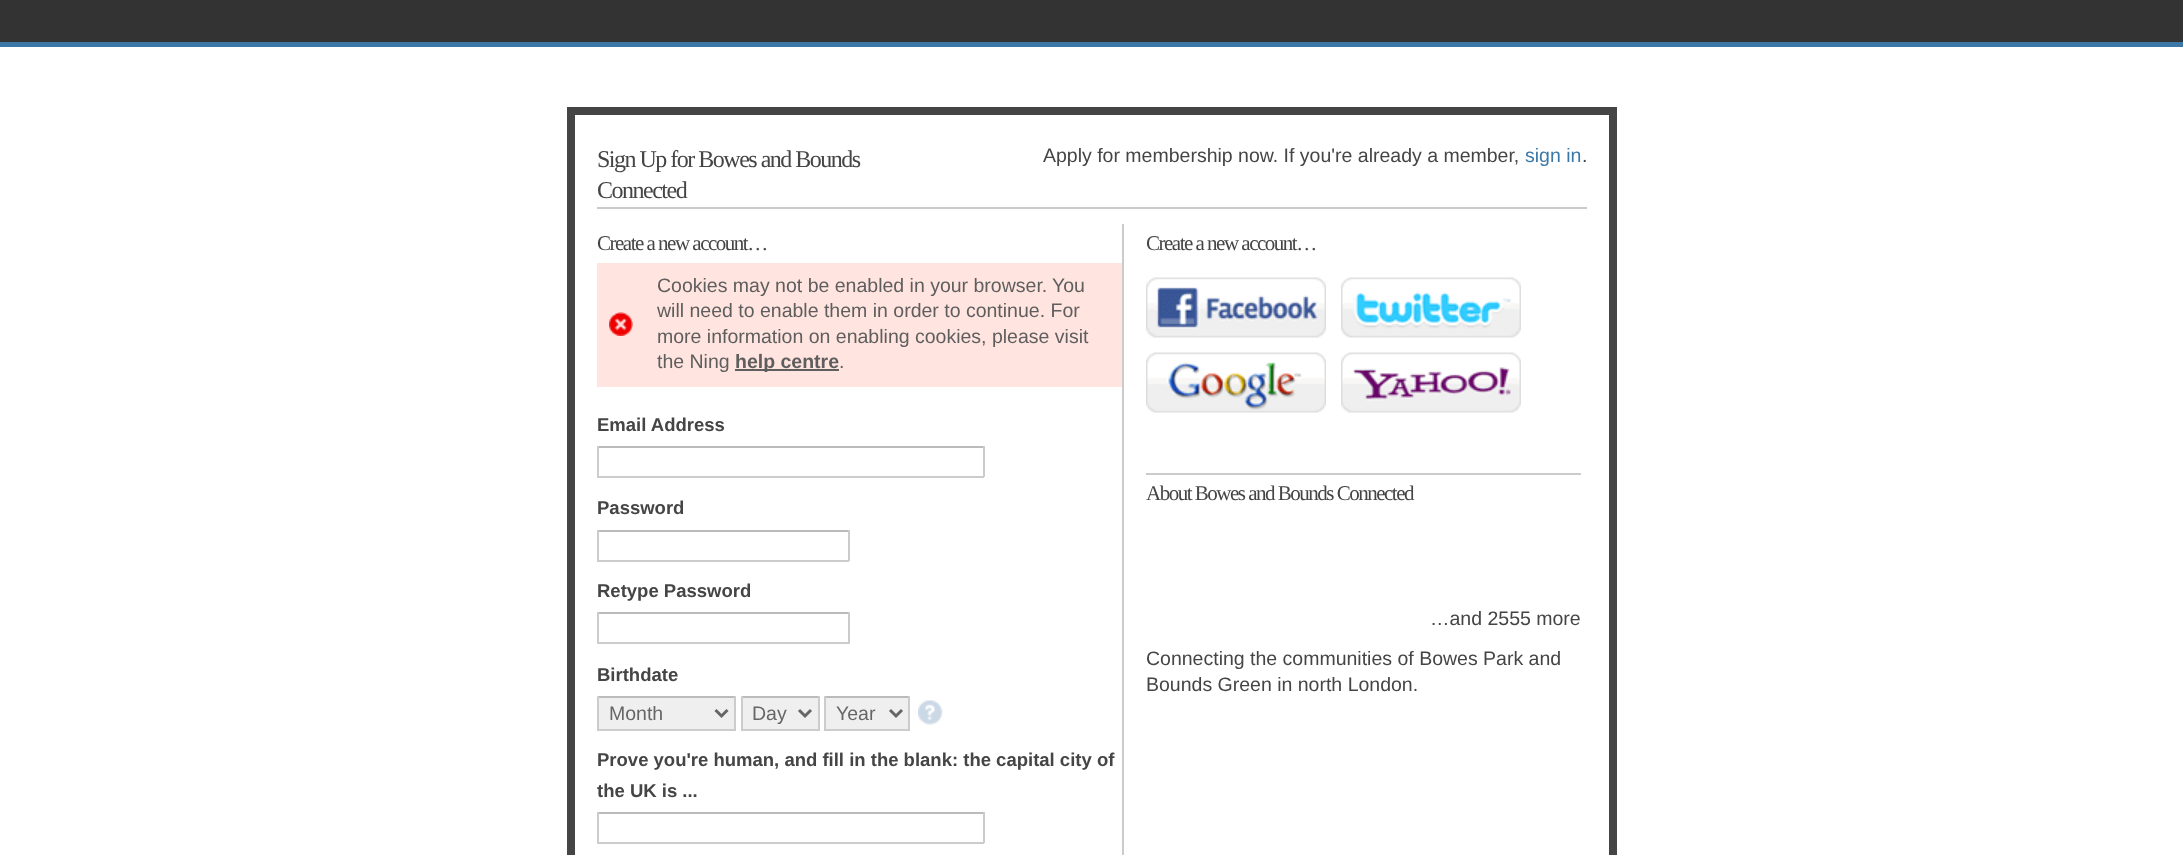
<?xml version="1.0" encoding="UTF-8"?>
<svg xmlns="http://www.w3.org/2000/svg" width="2183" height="855">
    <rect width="100%" height="100%" fill="#FFFFFF"/>
    <rect x="0" y="0" width="2183" height="42" fill="#333333"/>
    <rect x="0" y="42" width="2183" height="5" fill="#3C78A7"/>
    <rect x="571" y="111" width="1042" height="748" fill="none" stroke="#454545" stroke-width="8"/>
    <rect x="597" y="207" width="990" height="2" fill="#CBCBCB"/>
    <text font-family="Liberation Serif" font-size="24" letter-spacing="-1.5" fill="#454545">
        <tspan x="597" y="167">Sign Up for Bowes and Bounds</tspan>
        <tspan x="597" y="198">Connected</tspan>
    </text>
    <text x="1043" y="162" font-family="Liberation Sans" font-size="19.5" fill="#454545">Apply for membership now. If you're already a member,</text>
    <text x="1525" y="162" font-family="Liberation Sans" font-size="19.5" fill="#3C78A7">sign in</text>
    <text x="1582" y="162" font-family="Liberation Sans" font-size="19.5" fill="#454545">.</text>
    <rect x="1122" y="224" width="2" height="631" fill="#CBCBCB"/>
    <text x="597" y="250" font-family="Liberation Serif" font-size="21" letter-spacing="-1.5" fill="#454545">Create a new account…</text>
    <rect x="597" y="263" width="525" height="124" fill="#FFE4DF"/>
    <image x="609" y="312" width="24" height="24" href="img_01.png"/>
    <text x="657" y="292" font-family="Liberation Sans" font-size="19.5" fill="#5E5E5E">Cookies may not be enabled in your browser.</text>
    <text x="1052" y="292" font-family="Liberation Sans" font-size="19.5" fill="#5E5E5E">You</text>
    <text font-family="Liberation Sans" font-size="19.5" fill="#5E5E5E">
        <tspan x="657" y="317">will need to enable them in order to continue. For</tspan>
        <tspan x="657" y="343">more information on enabling cookies, please visit</tspan>
        <tspan x="657" y="368">the Ning</tspan>
    </text>
    <rect x="735" y="369" width="104" height="2" fill="#5E5E5E"/>
    <text x="735" y="368" font-family="Liberation Sans" font-size="19.5" font-weight="700" fill="#5E5E5E">help centre</text>
    <text x="839" y="368" font-family="Liberation Sans" font-size="19.5" fill="#5E5E5E">.</text>
    <text x="597" y="431" font-family="Liberation Sans" font-size="18.5" font-weight="700" fill="#454545">Email Address</text>
    <rect x="597" y="446" width="387" height="2" fill="#BBBBBB"/>
    <rect x="983" y="446" width="2" height="31" fill="#CCCCCC"/>
    <rect x="597" y="476" width="387" height="2" fill="#CCCCCC"/>
    <rect x="597" y="446" width="2" height="31" fill="#CCCCCC"/>
    <text x="597" y="514" font-family="Liberation Sans" font-size="18.5" font-weight="700" fill="#454545">Password</text>
    <rect x="597" y="530" width="252" height="2" fill="#BBBBBB"/>
    <rect x="848" y="530" width="2" height="31" fill="#CCCCCC"/>
    <rect x="597" y="560" width="252" height="2" fill="#CCCCCC"/>
    <rect x="597" y="530" width="2" height="31" fill="#CCCCCC"/>
    <text x="597" y="597" font-family="Liberation Sans" font-size="18.5" font-weight="700" fill="#454545">Retype Password</text>
    <rect x="597" y="612" width="252" height="2" fill="#BBBBBB"/>
    <rect x="848" y="612" width="2" height="32" fill="#CCCCCC"/>
    <rect x="597" y="642" width="252" height="2" fill="#CCCCCC"/>
    <rect x="597" y="612" width="2" height="32" fill="#CCCCCC"/>
    <text x="597" y="681" font-family="Liberation Sans" font-size="18.5" font-weight="700" fill="#454545">Birthdate</text>
    <rect x="599" y="698" width="135" height="31" fill="#EFEFEF"/>
    <rect x="597" y="696" width="138" height="2" fill="#BBBBBB"/>
    <rect x="734" y="696" width="2" height="35" fill="#CCCCCC"/>
    <rect x="597" y="729" width="138" height="2" fill="#CCCCCC"/>
    <rect x="597" y="696" width="2" height="35" fill="#CCCCCC"/>
    <path d="M 715.5 710 L 721.5 716 L 727.5 710" fill="none" stroke="#666666" stroke-width="3"/>
    <text x="609" y="720" font-family="Liberation Sans" font-size="19.5" fill="#666666">Month</text>
    <rect x="743" y="698" width="75" height="31" fill="#EFEFEF"/>
    <rect x="741" y="696" width="78" height="2" fill="#BBBBBB"/>
    <rect x="818" y="696" width="2" height="35" fill="#CCCCCC"/>
    <rect x="741" y="729" width="78" height="2" fill="#CCCCCC"/>
    <rect x="741" y="696" width="2" height="35" fill="#CCCCCC"/>
    <path d="M 799 710 L 805 716 L 811 710" fill="none" stroke="#666666" stroke-width="3"/>
    <text x="752" y="720" font-family="Liberation Sans" font-size="19.5" fill="#666666">Day</text>
    <rect x="826" y="698" width="82" height="31" fill="#EFEFEF"/>
    <rect x="824" y="696" width="85" height="2" fill="#BBBBBB"/>
    <rect x="908" y="696" width="2" height="35" fill="#CCCCCC"/>
    <rect x="824" y="729" width="85" height="2" fill="#CCCCCC"/>
    <rect x="824" y="696" width="2" height="35" fill="#CCCCCC"/>
    <path d="M 890 710 L 896 716 L 902 710" fill="none" stroke="#666666" stroke-width="3"/>
    <text x="836" y="720" font-family="Liberation Sans" font-size="19.5" fill="#666666">Year</text>
    <image x="918" y="700" width="25" height="25" href="img_02.png"/>
    <text font-family="Liberation Sans" font-size="18.5" font-weight="700" fill="#454545">
        <tspan x="597" y="766">Prove you're human, and fill in the blank: the capital city of</tspan>
        <tspan x="597" y="797">the UK is ...</tspan>
    </text>
    <rect x="597" y="812" width="387" height="2" fill="#BBBBBB"/>
    <rect x="983" y="812" width="2" height="31" fill="#CCCCCC"/>
    <rect x="597" y="842" width="387" height="2" fill="#CCCCCC"/>
    <rect x="597" y="812" width="2" height="31" fill="#CCCCCC"/>
    <text x="1146" y="250" font-family="Liberation Serif" font-size="21" letter-spacing="-1.5" fill="#454545">Create a new account…</text>
    <rect x="1146" y="473" width="435" height="2" fill="#CBCBCB"/>
    <image x="1146" y="277" width="180" height="61" href="img_03.png"/>
    <image x="1341" y="277" width="180" height="61" href="img_04.png"/>
    <image x="1146" y="352" width="180" height="61" href="img_05.png"/>
    <image x="1341" y="352" width="180" height="61" href="img_06.png"/>
    <text x="1146" y="500" font-family="Liberation Serif" font-size="21" letter-spacing="-1.5" fill="#454545">About Bowes and Bounds Connected</text>
    <text x="1430" y="625" font-family="Liberation Sans" font-size="19.5" fill="#454545">…and 2555 more</text>
    <text font-family="Liberation Sans" font-size="19.5" fill="#454545">
        <tspan x="1146" y="665">Connecting the communities of Bowes Park and</tspan>
        <tspan x="1146" y="691">Bounds Green in north London.</tspan>
    </text>
</svg>
